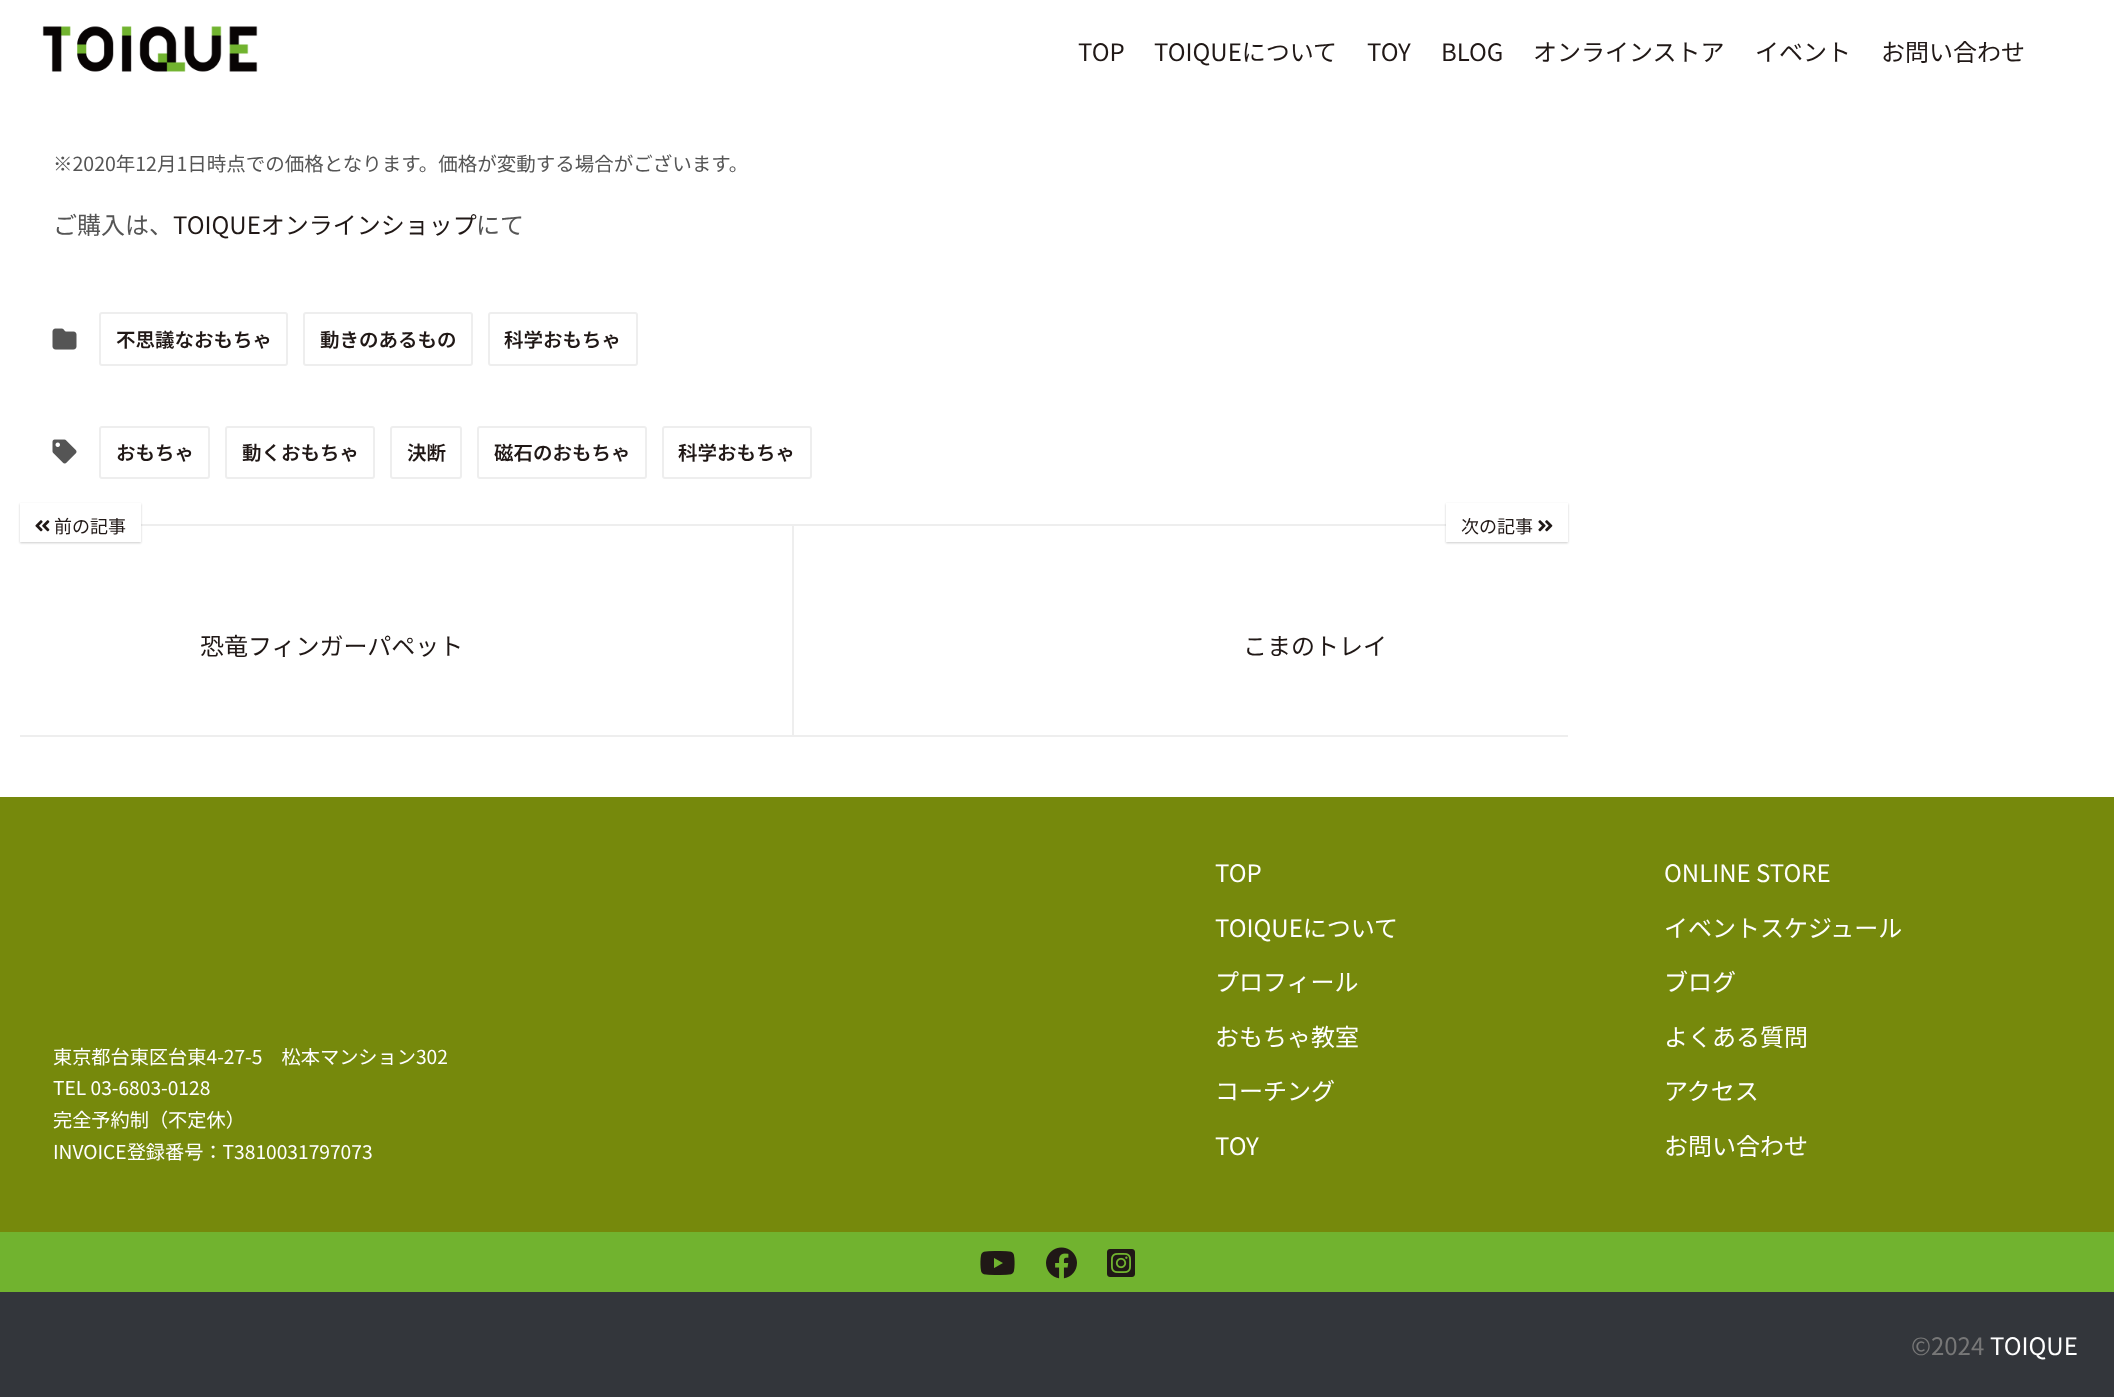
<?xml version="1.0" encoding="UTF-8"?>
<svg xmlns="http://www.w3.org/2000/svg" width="2114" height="1397">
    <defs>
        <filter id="blur1" x="-50%" y="-200%" width="200%" height="500%"><feGaussianBlur stdDeviation="1"/></filter>
    </defs>
    <rect width="100%" height="100%" fill="#FFFFFF"/>
    <image x="42" y="26" width="216" height="46" href="img_01.png"/>
    <text x="1078" y="61" font-family="Noto Sans JP" font-size="24" fill="#201816">TOP</text>
    <text x="1154" y="61" font-family="Noto Sans JP" font-size="24" fill="#201816">TOIQUEについて</text>
    <text x="1367" y="61" font-family="Noto Sans JP" font-size="24" fill="#201816">TOY</text>
    <text x="1441" y="61" font-family="Noto Sans JP" font-size="24" fill="#201816">BLOG</text>
    <text x="1533" y="61" font-family="Noto Sans JP" font-size="24" fill="#201816">オンラインストア</text>
    <text x="1755" y="61" font-family="Noto Sans JP" font-size="24" fill="#201816">イベント</text>
    <text x="1881" y="61" font-family="Noto Sans JP" font-size="24" fill="#201816">お問い合わせ</text>
    <text x="53" y="171" font-family="Noto Sans JP" font-size="19.5" fill="#555555">※2020年12月1日時点での価格となります。価格が変動する場合がございます。</text>
    <text x="53" y="234" font-family="Noto Sans JP" font-size="24" fill="#555555">ご購入は、</text>
    <text x="173" y="234" font-family="Noto Sans JP" font-size="24" fill="#201816">TOIQUEオンラインショップ</text>
    <text x="476" y="234" font-family="Noto Sans JP" font-size="24" fill="#555555">にて</text>
    <image x="52" y="328" width="25" height="22" href="img_02.png"/>
    <rect x="100" y="313" width="187" height="52" rx="2" fill="none" stroke="#EEEEEE" stroke-width="2"/>
    <text x="116" y="347" font-family="Noto Sans JP" font-size="19.5" font-weight="600" fill="#201816">不思議なおもちゃ</text>
    <rect x="304" y="313" width="168" height="52" rx="2" fill="none" stroke="#EEEEEE" stroke-width="2"/>
    <text x="320" y="347" font-family="Noto Sans JP" font-size="19.5" font-weight="600" fill="#201816">動きのあるもの</text>
    <rect x="489" y="313" width="148" height="52" rx="2" fill="none" stroke="#EEEEEE" stroke-width="2"/>
    <text x="504" y="347" font-family="Noto Sans JP" font-size="19.5" font-weight="600" fill="#201816">科学おもちゃ</text>
    <image x="52" y="439" width="25" height="25" href="img_03.png"/>
    <rect x="100" y="427" width="109" height="51" rx="2" fill="none" stroke="#EEEEEE" stroke-width="2"/>
    <text x="116" y="460" font-family="Noto Sans JP" font-size="19.5" font-weight="600" fill="#201816">おもちゃ</text>
    <rect x="226" y="427" width="148" height="51" rx="2" fill="none" stroke="#EEEEEE" stroke-width="2"/>
    <text x="242" y="460" font-family="Noto Sans JP" font-size="19.5" font-weight="600" fill="#201816">動くおもちゃ</text>
    <rect x="391" y="427" width="70" height="51" rx="2" fill="none" stroke="#EEEEEE" stroke-width="2"/>
    <text x="407" y="460" font-family="Noto Sans JP" font-size="19.5" font-weight="600" fill="#201816">決断</text>
    <rect x="478" y="427" width="168" height="51" rx="2" fill="none" stroke="#EEEEEE" stroke-width="2"/>
    <text x="494" y="460" font-family="Noto Sans JP" font-size="19.5" font-weight="600" fill="#201816">磁石のおもちゃ</text>
    <rect x="663" y="427" width="148" height="51" rx="2" fill="none" stroke="#EEEEEE" stroke-width="2"/>
    <text x="678" y="460" font-family="Noto Sans JP" font-size="19.5" font-weight="600" fill="#201816">科学おもちゃ</text>
    <rect x="141" y="524" width="1305" height="2" fill="#EEEEEE"/>
    <rect x="792" y="524" width="2" height="213" fill="#EEEEEE"/>
    <rect x="20" y="735" width="1548" height="2" fill="#EEEEEE"/>
    <rect x="20" y="504" width="121" height="39" fill="#000000" fill-opacity="0.2" filter="url(#blur1)"/>
    <rect x="20" y="503" width="121" height="39" fill="#FFFFFF"/>
    <image x="35" y="520" width="15" height="12" href="img_04.png"/>
    <text x="54" y="533" font-family="Noto Sans JP" font-size="18" fill="#201816">前の記事</text>
    <text x="200" y="655" font-family="Noto Sans JP" font-size="24" fill="#201816">恐竜フィンガーパペット</text>
    <rect x="1446" y="504" width="122" height="39" fill="#000000" fill-opacity="0.2" filter="url(#blur1)"/>
    <rect x="1446" y="503" width="122" height="39" fill="#FFFFFF"/>
    <text x="1461" y="533" font-family="Noto Sans JP" font-size="18" fill="#201816">次の記事</text>
    <image x="1538" y="520" width="15" height="12" href="img_05.png"/>
    <text x="1243" y="655" font-family="Noto Sans JP" font-size="24" fill="#201816">こまのトレイ</text>
    <rect x="0" y="797" width="2114" height="435" fill="#76890C"/>
    <text font-family="Noto Sans JP" font-size="19.2" fill="#FFFFFF">
        <tspan x="53" y="1064">東京都台東区台東4-27-5　松本マンション302</tspan>
        <tspan x="53" y="1095">TEL 03-6803-0128</tspan>
        <tspan x="53" y="1127">完全予約制（不定休）</tspan>
        <tspan x="53" y="1159">INVOICE登録番号：T3810031797073</tspan>
    </text>
    <text x="1215" y="882" font-family="Noto Sans JP" font-size="24" fill="#FFFFFF">TOP</text>
    <text x="1215" y="937" font-family="Noto Sans JP" font-size="24" fill="#FFFFFF">TOIQUEについて</text>
    <text x="1215" y="991" font-family="Noto Sans JP" font-size="24" fill="#FFFFFF">プロフィール</text>
    <text x="1215" y="1046" font-family="Noto Sans JP" font-size="24" fill="#FFFFFF">おもちゃ教室</text>
    <text x="1215" y="1100" font-family="Noto Sans JP" font-size="24" fill="#FFFFFF">コーチング</text>
    <text x="1215" y="1155" font-family="Noto Sans JP" font-size="24" fill="#FFFFFF">TOY</text>
    <text x="1664" y="882" font-family="Noto Sans JP" font-size="24" fill="#FFFFFF">ONLINE STORE</text>
    <text x="1664" y="937" font-family="Noto Sans JP" font-size="24" fill="#FFFFFF">イベントスケジュール</text>
    <text x="1664" y="991" font-family="Noto Sans JP" font-size="24" fill="#FFFFFF">ブログ</text>
    <text x="1664" y="1046" font-family="Noto Sans JP" font-size="24" fill="#FFFFFF">よくある質問</text>
    <text x="1664" y="1100" font-family="Noto Sans JP" font-size="24" fill="#FFFFFF">アクセス</text>
    <text x="1664" y="1155" font-family="Noto Sans JP" font-size="24" fill="#FFFFFF">お問い合わせ</text>
    <rect x="0" y="1232" width="2114" height="60" fill="#71B32F"/>
    <image x="980" y="1251" width="35" height="24" href="img_06.png"/>
    <image x="1046" y="1247" width="31" height="32" href="img_07.png"/>
    <image x="1107" y="1249" width="28" height="28" href="img_08.png"/>
    <rect x="0" y="1292" width="2114" height="105" fill="#33363B"/>
    <text x="1911" y="1355" font-family="Noto Sans JP" font-size="24" fill="#777777">©2024</text>
    <text x="1990" y="1355" font-family="Noto Sans JP" font-size="24" fill="#FFFFFF">TOIQUE</text>
</svg>
